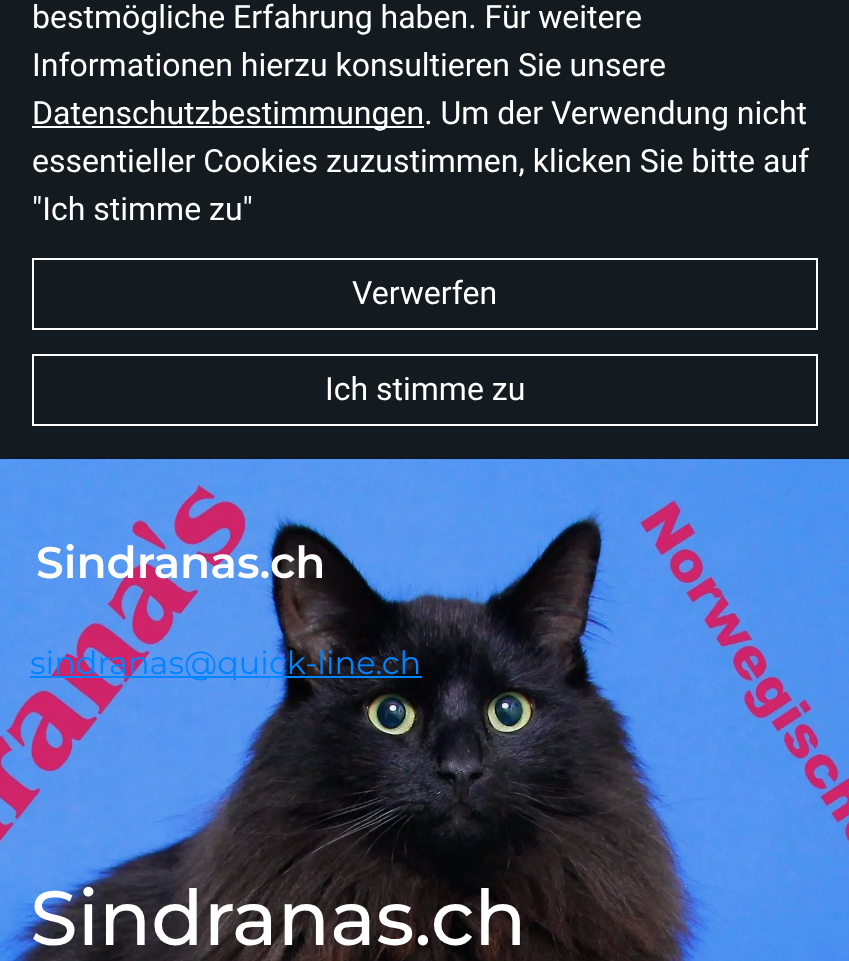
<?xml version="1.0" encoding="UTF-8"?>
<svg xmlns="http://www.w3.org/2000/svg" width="849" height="961">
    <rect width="100%" height="100%" fill="#131A20"/>
    <text font-family="Roboto" font-size="32" fill="#FFFFFF">
        <tspan x="32" y="28">bestmögliche Erfahrung haben. Für weitere</tspan>
        <tspan x="32" y="76">Informationen hierzu konsultieren Sie unsere</tspan>
    </text>
    <rect x="32" y="126" width="392" height="2" fill="#FFFFFF"/>
    <text font-family="Roboto" font-size="32" fill="#FFFFFF">
        <tspan x="32" y="124">Datenschutzbestimmungen. Um der Verwendung nicht</tspan>
        <tspan x="32" y="172">essentieller Cookies zuzustimmen, klicken Sie bitte auf</tspan>
        <tspan x="32" y="220">"Ich stimme zu"</tspan>
    </text>
    <rect x="33" y="259" width="784" height="70" fill="none" stroke="#FFFFFF" stroke-width="2"/>
    <text x="352" y="304" font-family="Roboto" font-size="32" fill="#FFFFFF">Verwerfen</text>
    <rect x="33" y="355" width="784" height="70" fill="none" stroke="#FFFFFF" stroke-width="2"/>
    <text x="325" y="400" font-family="Roboto" font-size="32" fill="#FFFFFF">Ich stimme zu</text>
    <rect x="0" y="458" width="849" height="1" fill="#051433"/>
    <image x="0" y="459" width="849" height="502" href="img_01.png"/>
    <text x="36" y="578" font-family="Montserrat" font-size="44" font-weight="600" fill="#FFFFFF">Sindranas.ch</text>
    <rect x="30" y="676" width="392" height="2" fill="#0084FF"/>
    <text x="30" y="674" font-family="Montserrat" font-size="32" fill="#0084FF">sindranas@quick-line.ch</text>
    <text x="30" y="945" font-family="Montserrat" font-size="76.75" font-weight="500" fill="#FFFFFF">Sindranas.ch</text>
</svg>
